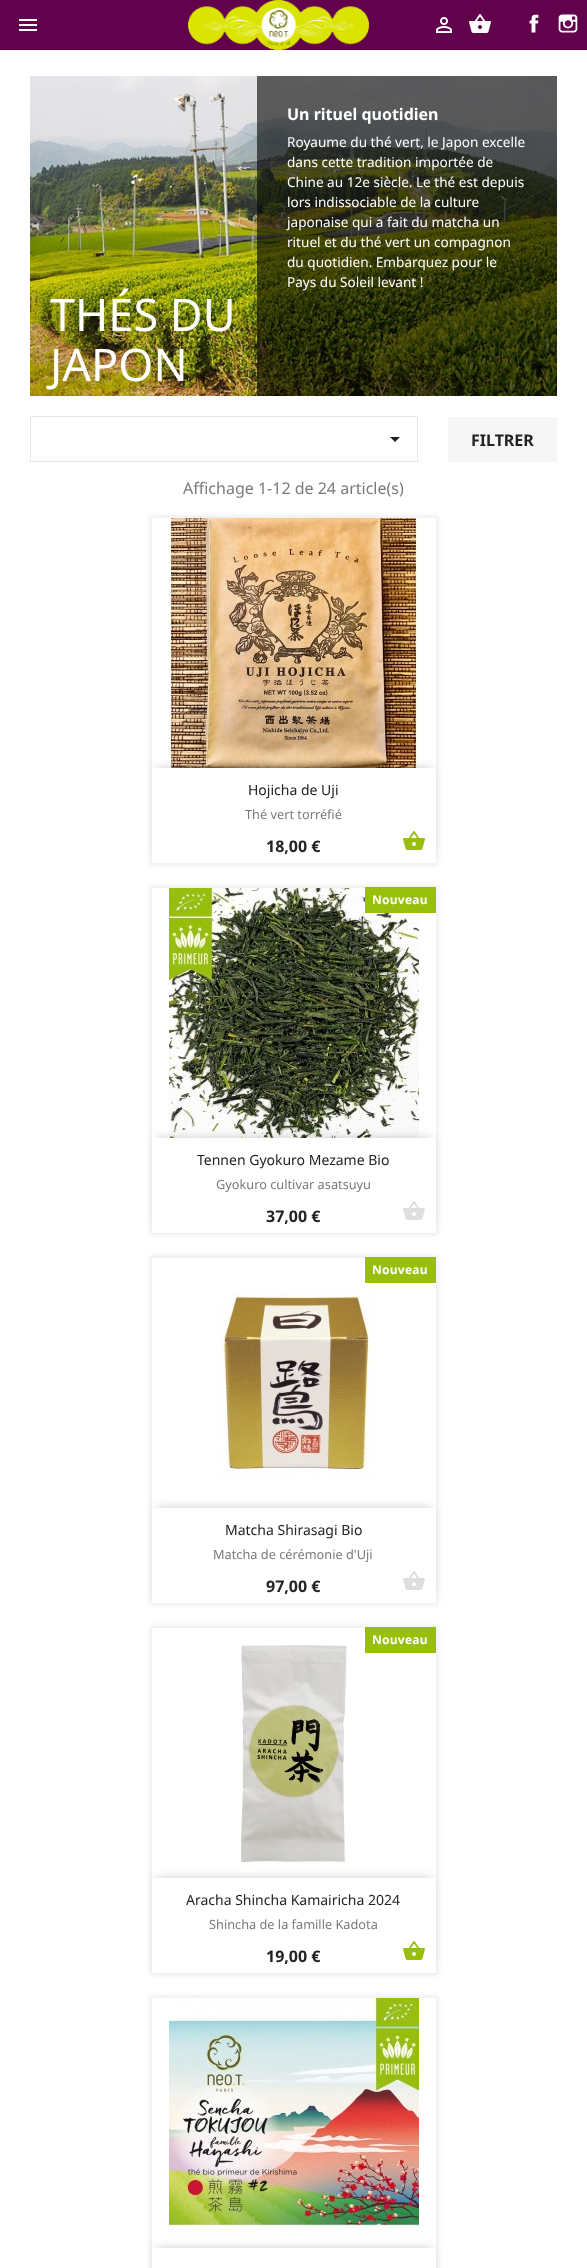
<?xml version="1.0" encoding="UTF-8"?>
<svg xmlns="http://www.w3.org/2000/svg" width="587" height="2268">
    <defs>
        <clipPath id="clip1"><path d="M 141 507 H 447 V 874 H 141 Z M 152 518 H 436 V 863 H 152 Z" clip-rule="evenodd"/></clipPath>
        <filter id="blur1" x="-50%" y="-200%" width="200%" height="500%"><feGaussianBlur stdDeviation="2.5"/></filter>
        <clipPath id="clip2"><path d="M 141 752 H 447 V 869 H 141 Z M 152 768 H 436 V 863 H 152 Z" clip-rule="evenodd"/></clipPath>
        <filter id="blur2" x="-50%" y="-200%" width="200%" height="500%"><feGaussianBlur stdDeviation="5"/></filter>
        <clipPath id="clip3"><path d="M 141 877 H 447 V 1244 H 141 Z M 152 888 H 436 V 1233 H 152 Z" clip-rule="evenodd"/></clipPath>
        <clipPath id="clip4"><path d="M 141 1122 H 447 V 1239 H 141 Z M 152 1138 H 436 V 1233 H 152 Z" clip-rule="evenodd"/></clipPath>
        <clipPath id="clip5"><path d="M 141 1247 H 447 V 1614 H 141 Z M 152 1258 H 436 V 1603 H 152 Z" clip-rule="evenodd"/></clipPath>
        <clipPath id="clip6"><path d="M 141 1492 H 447 V 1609 H 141 Z M 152 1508 H 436 V 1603 H 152 Z" clip-rule="evenodd"/></clipPath>
        <clipPath id="clip7"><path d="M 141 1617 H 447 V 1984 H 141 Z M 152 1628 H 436 V 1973 H 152 Z" clip-rule="evenodd"/></clipPath>
        <clipPath id="clip8"><path d="M 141 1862 H 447 V 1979 H 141 Z M 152 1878 H 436 V 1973 H 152 Z" clip-rule="evenodd"/></clipPath>
        <clipPath id="clip9"><path d="M 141 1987 H 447 V 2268 H 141 Z M 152 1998 H 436 V 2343 H 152 Z" clip-rule="evenodd"/></clipPath>
        <clipPath id="clip10"><path d="M 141 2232 H 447 V 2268 H 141 Z M 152 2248 H 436 V 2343 H 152 Z" clip-rule="evenodd"/></clipPath>
    </defs>
    <rect width="100%" height="100%" fill="#FFFFFF"/>
    <rect x="0" y="0" width="587" height="50" fill="#62024C"/>
    <image x="19" y="19" width="18" height="12" href="img_01.png"/>
    <image x="188" y="0" width="181" height="50" href="img_02.png"/>
    <image x="436" y="17" width="16" height="16" href="img_03.png"/>
    <image x="469" y="14" width="22" height="19" href="img_04.png"/>
    <image x="529" y="14" width="10" height="19" href="img_05.png"/>
    <image x="558" y="14" width="20" height="19" href="img_06.png"/>
    <image x="30" y="76" width="527" height="320" href="img_07.png"/>
    <rect x="257" y="76" width="300" height="320" fill="#000000" fill-opacity="0.6"/>
    <text x="287" y="120" font-family="Noto Sans" font-size="16" font-weight="700" fill="#FFFFFF">Un rituel quotidien</text>
    <text font-family="Noto Sans" font-size="13.6" fill="#FFFFFF">
        <tspan x="287" y="147">Royaume du thé vert, le Japon excelle</tspan>
        <tspan x="287" y="167">dans cette tradition importée de</tspan>
        <tspan x="287" y="187">Chine au 12e siècle. Le thé est depuis</tspan>
        <tspan x="287" y="207">lors indissociable de la culture</tspan>
        <tspan x="287" y="227">japonaise qui a fait du matcha un</tspan>
        <tspan x="287" y="247">rituel et du thé vert un compagnon</tspan>
        <tspan x="287" y="267">du quotidien. Embarquez pour le</tspan>
        <tspan x="287" y="287">Pays du Soleil levant !</tspan>
    </text>
    <text font-family="Noto Sans" font-size="45" fill="#FFFFFF">
        <tspan x="50" y="331">THÉS DU</tspan>
        <tspan x="50" y="381">JAPON</tspan>
    </text>
    <rect x="30.5" y="416.5" width="387" height="45" fill="none" stroke="#E6E6E6"/>
    <path d="M 390 437 H 400 L 395 442 Z" fill="#232323"/>
    <rect x="448" y="417" width="109" height="45" fill="#F6F6F6"/>
    <text x="471" y="446" font-family="Noto Sans" font-size="16" font-weight="700" fill="#232323">FILTRER</text>
    <text x="183" y="494" font-family="Noto Sans" font-size="16" fill="#7A7A7A">Affichage 1-12 de 24 article(s)</text>
    <g clip-path="url(#clip1)">
        <rect x="150" y="516" width="288" height="349" fill="#000000" fill-opacity="0.08" filter="url(#blur1)"/>
    </g>
    <image x="169" y="518" width="250" height="250" href="img_08.png"/>
    <g clip-path="url(#clip2)">
        <rect x="157" y="768" width="274" height="85" fill="#000000" fill-opacity="0.2" filter="url(#blur2)"/>
    </g>
    <text x="248" y="795" font-family="Noto Sans" font-size="14" fill="#232323">Hojicha de Uji</text>
    <text x="245" y="819" font-family="Noto Sans" font-size="12.75" fill="#7A7A7A">Thé vert torréfié</text>
    <text x="266" y="852" font-family="Noto Sans" font-size="16" font-weight="700" fill="#232323">18,00 €</text>
    <image x="403" y="831" width="22" height="19" href="img_09.png"/>
    <g clip-path="url(#clip3)">
        <rect x="150" y="886" width="288" height="349" fill="#000000" fill-opacity="0.08" filter="url(#blur1)"/>
    </g>
    <image x="169" y="888" width="250" height="250" href="img_10.png"/>
    <rect x="365" y="887" width="71" height="26" fill="#97BF0B"/>
    <text x="372" y="904" font-family="Noto Sans" font-size="12" font-weight="700" letter-spacing="0.25" fill="#FFFFFF">Nouveau</text>
    <g clip-path="url(#clip4)">
        <rect x="157" y="1138" width="274" height="85" fill="#000000" fill-opacity="0.2" filter="url(#blur2)"/>
    </g>
    <text x="197" y="1165" font-family="Noto Sans" font-size="14" fill="#232323">Tennen Gyokuro Mezame Bio</text>
    <text x="216" y="1189" font-family="Noto Sans" font-size="12.75" fill="#7A7A7A">Gyokuro cultivar asatsuyu</text>
    <text x="266" y="1222" font-family="Noto Sans" font-size="16" font-weight="700" fill="#232323">37,00 €</text>
    <image x="403" y="1201" width="22" height="19" href="img_11.png"/>
    <g clip-path="url(#clip5)">
        <rect x="150" y="1256" width="288" height="349" fill="#000000" fill-opacity="0.08" filter="url(#blur1)"/>
    </g>
    <rect x="365" y="1257" width="71" height="26" fill="#97BF0B"/>
    <text x="372" y="1274" font-family="Noto Sans" font-size="12" font-weight="700" letter-spacing="0.25" fill="#FFFFFF">Nouveau</text>
    <image x="217" y="1290" width="160" height="192" href="img_12.png"/>
    <g clip-path="url(#clip6)">
        <rect x="157" y="1508" width="274" height="85" fill="#000000" fill-opacity="0.2" filter="url(#blur2)"/>
    </g>
    <text x="225" y="1535" font-family="Noto Sans" font-size="14" fill="#232323">Matcha Shirasagi Bio</text>
    <text x="213" y="1559" font-family="Noto Sans" font-size="12.75" fill="#7A7A7A">Matcha de cérémonie d'Uji</text>
    <text x="266" y="1592" font-family="Noto Sans" font-size="16" font-weight="700" fill="#232323">97,00 €</text>
    <image x="403" y="1571" width="22" height="19" href="img_11.png"/>
    <g clip-path="url(#clip7)">
        <rect x="150" y="1626" width="288" height="349" fill="#000000" fill-opacity="0.08" filter="url(#blur1)"/>
    </g>
    <rect x="365" y="1627" width="71" height="26" fill="#97BF0B"/>
    <text x="372" y="1644" font-family="Noto Sans" font-size="12" font-weight="700" letter-spacing="0.25" fill="#FFFFFF">Nouveau</text>
    <image x="241" y="1644" width="106" height="224" href="img_13.png"/>
    <g clip-path="url(#clip8)">
        <rect x="157" y="1878" width="274" height="85" fill="#000000" fill-opacity="0.2" filter="url(#blur2)"/>
    </g>
    <text x="186" y="1905" font-family="Noto Sans" font-size="14" fill="#232323">Aracha Shincha Kamairicha 2024</text>
    <text x="209" y="1929" font-family="Noto Sans" font-size="12.75" fill="#7A7A7A">Shincha de la famille Kadota</text>
    <text x="266" y="1962" font-family="Noto Sans" font-size="16" font-weight="700" fill="#232323">19,00 €</text>
    <image x="403" y="1941" width="22" height="19" href="img_09.png"/>
    <g clip-path="url(#clip9)">
        <rect x="150" y="1996" width="288" height="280" fill="#000000" fill-opacity="0.08" filter="url(#blur1)"/>
    </g>
    <image x="169" y="1998" width="250" height="240" href="img_14.png"/>
    <g clip-path="url(#clip10)">
        <rect x="157" y="2248" width="274" height="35" fill="#000000" fill-opacity="0.2" filter="url(#blur2)"/>
    </g>
</svg>
